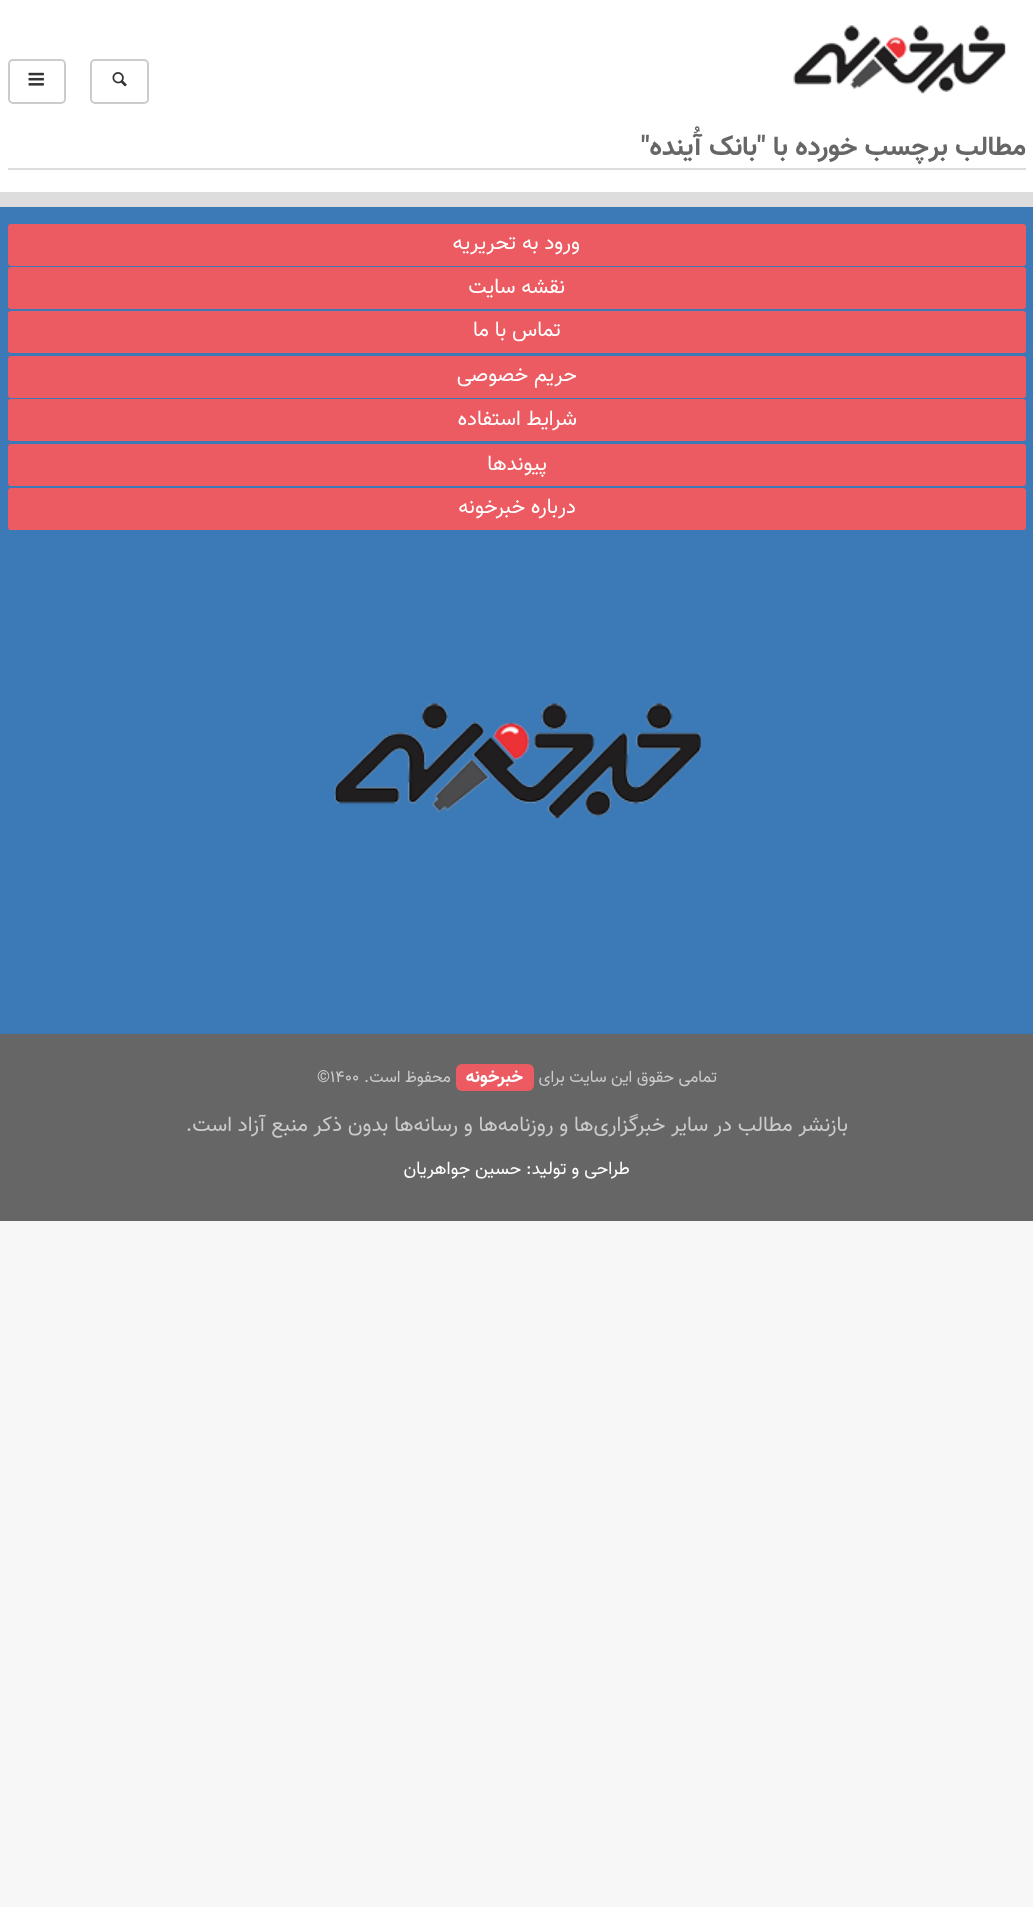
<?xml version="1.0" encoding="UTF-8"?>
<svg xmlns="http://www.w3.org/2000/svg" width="1033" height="1907">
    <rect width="100%" height="100%" fill="#F7F7F7"/>
    <rect x="0" y="0" width="1033" height="192" fill="#FFFFFF"/>
    <image x="793" y="25" width="213" height="69" href="img_01.png"/>
    <rect x="91" y="60" width="57" height="43" rx="4" fill="none" stroke="#CCCCCC" stroke-width="2"/>
    <image x="112" y="72" width="15" height="15" href="img_02.png"/>
    <rect x="9" y="60" width="56" height="43" rx="4" fill="none" stroke="#CCCCCC" stroke-width="2"/>
    <image x="28" y="72" width="16" height="14" href="img_03.png"/>
    <rect x="8" y="168" width="1018" height="2" fill="#DDDDDD"/>
    <text x="1026" y="155" font-family="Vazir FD" font-size="27" font-weight="700" direction="rtl" fill="#666666">مطالب برچسب خورده با "بانک آُینده"</text>
    <rect x="0" y="207" width="1033" height="827" fill="#3B79B7"/>
    <rect x="0" y="192" width="1033" height="15" fill="#DDDDDD"/>
    <rect x="8" y="224" width="1018" height="42" rx="3" fill="#EB5B61"/>
    <text x="580" y="249" font-family="Vazir FD" font-size="21" direction="rtl" fill="#FFFFFF">ورود به تحریریه</text>
    <rect x="8" y="267" width="1018" height="42" rx="3" fill="#EB5B61"/>
    <text x="565" y="293" font-family="Vazir FD" font-size="21" direction="rtl" fill="#FFFFFF">نقشه سایت</text>
    <rect x="8" y="311" width="1018" height="42" rx="3" fill="#EB5B61"/>
    <text x="561" y="336" font-family="Vazir FD" font-size="21" direction="rtl" fill="#FFFFFF">تماس با ما</text>
    <rect x="8" y="356" width="1018" height="42" rx="3" fill="#EB5B61"/>
    <text x="577" y="381" font-family="Vazir FD" font-size="21" direction="rtl" fill="#FFFFFF">حریم خصوصی</text>
    <rect x="8" y="399" width="1018" height="42" rx="3" fill="#EB5B61"/>
    <text x="577" y="425" font-family="Vazir FD" font-size="21" direction="rtl" fill="#FFFFFF">شرایط استفاده</text>
    <rect x="8" y="444" width="1018" height="42" rx="3" fill="#EB5B61"/>
    <text x="547" y="470" font-family="Vazir FD" font-size="21" direction="rtl" fill="#FFFFFF">پیوندها</text>
    <rect x="8" y="488" width="1018" height="42" rx="3" fill="#EB5B61"/>
    <text x="576" y="513" font-family="Vazir FD" font-size="21" direction="rtl" fill="#FFFFFF">درباره خبرخونه</text>
    <image x="334" y="703" width="367" height="116" href="img_04.png"/>
    <rect x="0" y="1034" width="1033" height="187" fill="#666666"/>
    <text x="717" y="1082" font-family="Vazir FD" font-size="16.5" direction="rtl" fill="#CCCCCC">تمامی حقوق این سایت برای</text>
    <rect x="456" y="1064" width="78" height="27" rx="6" fill="#EB5B61"/>
    <text x="523" y="1082" font-family="Vazir FD" font-size="18" font-weight="700" direction="rtl" fill="#FFFFFF">خبرخونه</text>
    <text x="451" y="1082" font-family="Vazir FD" font-size="16.5" direction="rtl" fill="#CCCCCC">محفوظ است.</text>
    <text x="317" y="1082" font-family="Vazir FD" font-size="16.5" fill="#CCCCCC">©۱400</text>
    <text x="848" y="1131" font-family="Vazir FD" font-size="21" direction="rtl" fill="#CCCCCC">بازنشر مطالب در سایر خبرگزاری‌ها و روزنامه‌ها و رسانه‌ها بدون ذکر منبع آزاد است.</text>
    <text x="630" y="1174" font-family="Vazir FD" font-size="18" direction="rtl" fill="#FFFFFF">طراحی و تولید: حسین جواهریان</text>
</svg>
